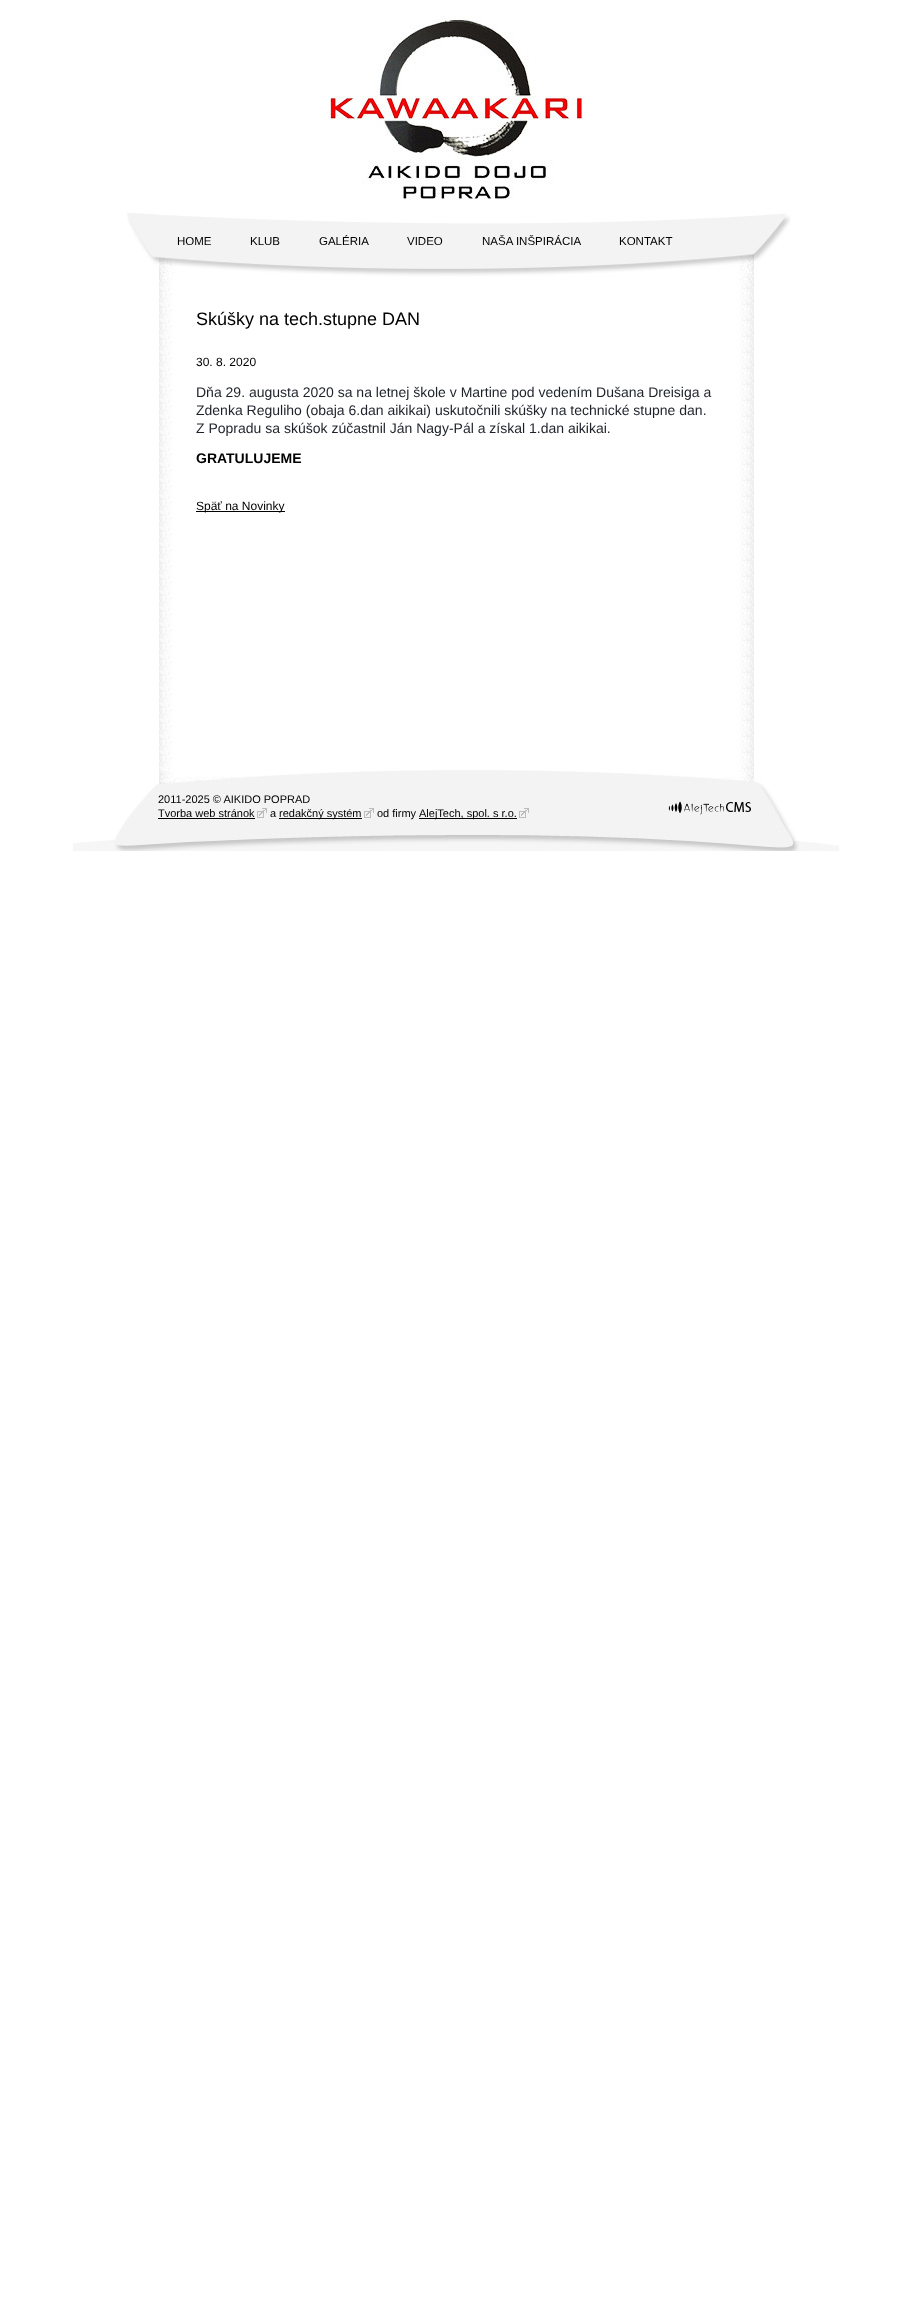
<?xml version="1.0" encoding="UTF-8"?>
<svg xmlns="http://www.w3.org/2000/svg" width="912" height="2317">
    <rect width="100%" height="100%" fill="#FFFFFF"/>
    <image x="329" y="16" width="256" height="184" href="img_01.png"/>
    <image x="127" y="213" width="664" height="67" href="img_02.png"/>
    <text x="177" y="245" font-family="Liberation Sans" font-size="11.5" fill="#000000">HOME</text>
    <text x="250" y="245" font-family="Liberation Sans" font-size="11.5" fill="#000000">KLUB</text>
    <text x="319" y="245" font-family="Liberation Sans" font-size="11.5" fill="#000000">GALÉRIA</text>
    <text x="407" y="245" font-family="Liberation Sans" font-size="11.5" fill="#000000">VIDEO</text>
    <text x="482" y="245" font-family="Liberation Sans" font-size="11.5" fill="#000000">NAŠA INŠPIRÁCIA</text>
    <text x="619" y="245" font-family="Liberation Sans" font-size="11.5" fill="#000000">KONTAKT</text>
    <image x="159" y="280" width="595" height="490" href="img_03.png"/>
    <text x="196" y="325" font-family="Liberation Sans" font-size="18" fill="#000000">Skúšky na tech.stupne DAN</text>
    <text x="196" y="366" font-family="Liberation Sans" font-size="12" fill="#000000">30. 8. 2020</text>
    <text font-family="Liberation Sans" font-size="14" fill="#1D2129">
        <tspan x="196" y="397">Dňa 29. augusta 2020 sa na letnej škole v Martine pod vedením Dušana Dreisiga a</tspan>
        <tspan x="196" y="415">Zdenka Reguliho (obaja 6.dan aikikai) uskutočnili skúšky na technické stupne dan.</tspan>
        <tspan x="196" y="433">Z Popradu sa skúšok zúčastnil Ján Nagy-Pál a získal 1.dan aikikai.</tspan>
    </text>
    <text x="196" y="463" font-family="Liberation Sans" font-size="14" font-weight="700" fill="#000000">GRATULUJEME</text>
    <rect x="196" y="511" width="89" height="1" fill="#000000"/>
    <text x="196" y="510" font-family="Liberation Sans" font-size="12" fill="#000000">Späť na Novinky</text>
    <image x="73" y="770" width="766" height="81" href="img_04.png"/>
    <text font-family="Liberation Sans" font-size="11" fill="#000000">
        <tspan x="158" y="803">2011-2025 © AIKIDO POPRAD</tspan>
        <tspan x="158" y="817">Tvorba web stránok</tspan>
    </text>
    <rect x="158" y="818" width="97" height="1" fill="#000000"/>
    <image x="257" y="808" width="10" height="10" href="img_05.png"/>
    <text x="270" y="817" font-family="Liberation Sans" font-size="11" fill="#000000">a</text>
    <rect x="279" y="818" width="83" height="1" fill="#000000"/>
    <text x="279" y="817" font-family="Liberation Sans" font-size="11" fill="#000000">redakčný systém</text>
    <image x="364" y="808" width="10" height="10" href="img_05.png"/>
    <text x="377" y="817" font-family="Liberation Sans" font-size="11" fill="#000000">od firmy</text>
    <rect x="419" y="818" width="98" height="1" fill="#000000"/>
    <text x="419" y="817" font-family="Liberation Sans" font-size="11" fill="#000000">AlejTech, spol. s r.o.</text>
    <image x="519" y="808" width="10" height="10" href="img_05.png"/>
    <image x="668" y="801" width="83" height="14" href="img_06.png"/>
</svg>
